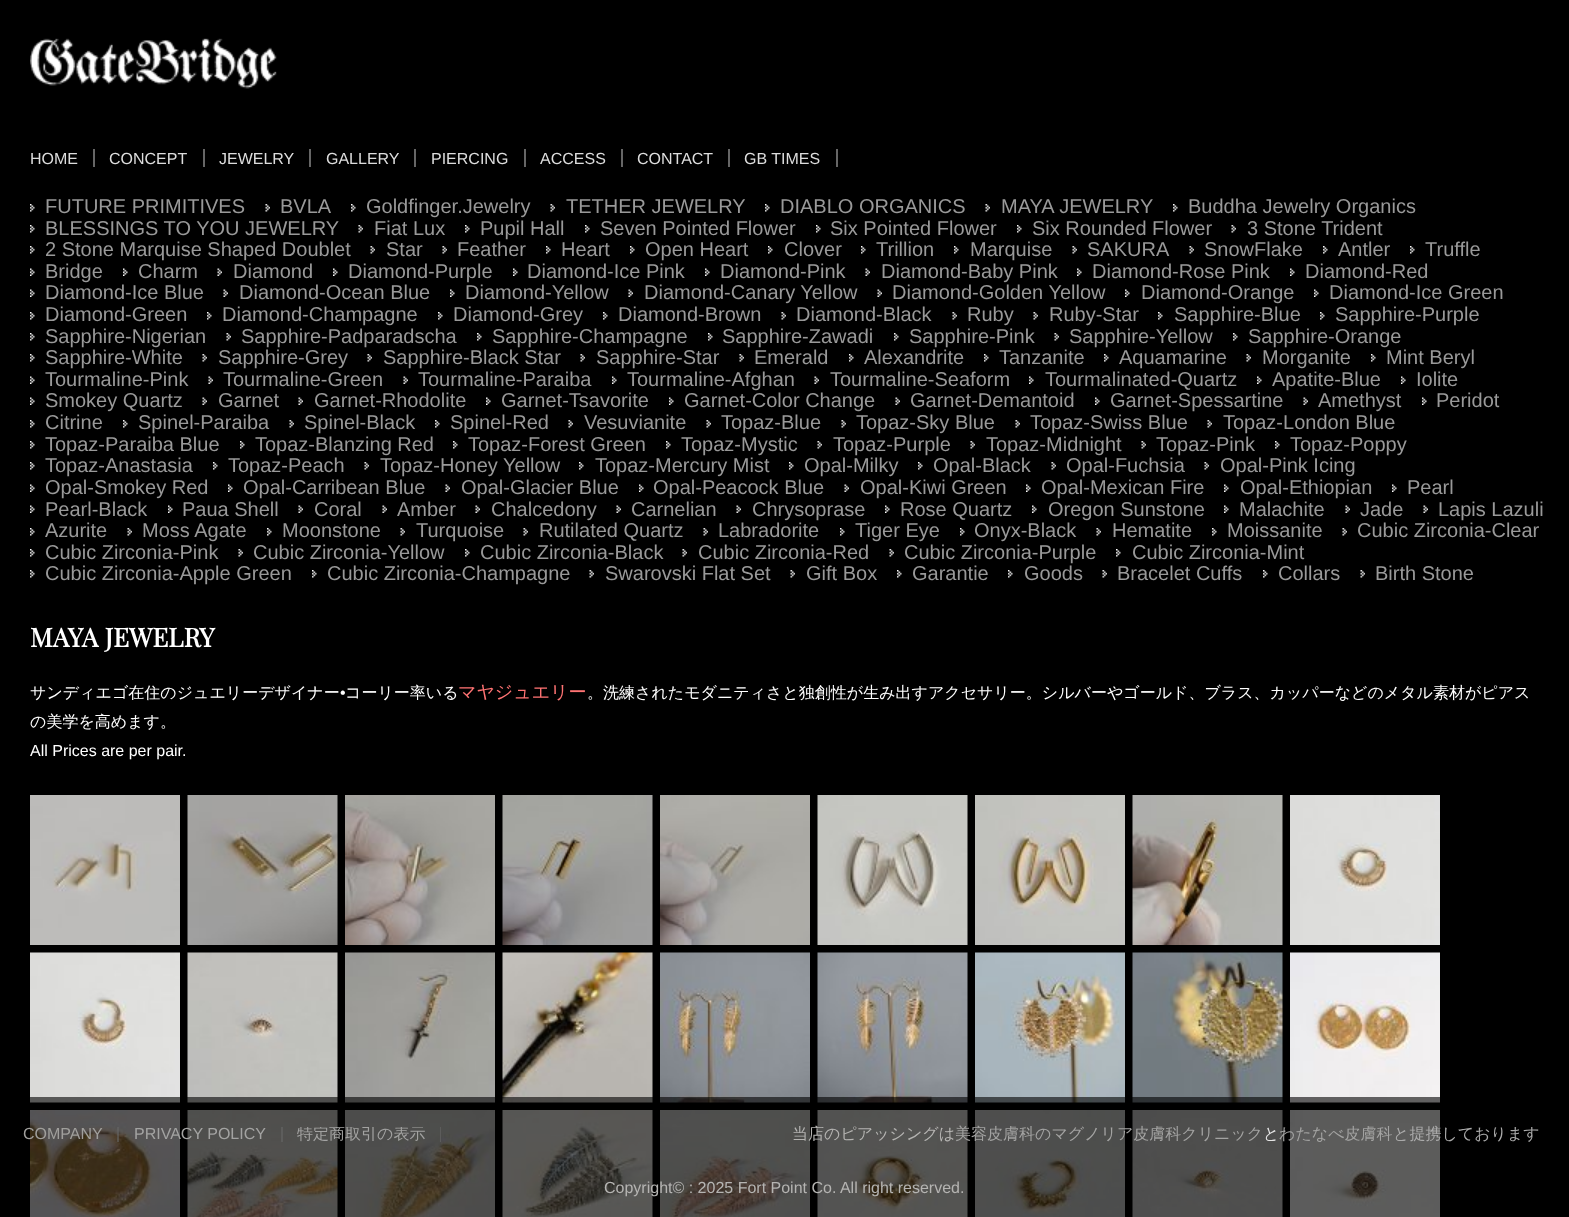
<?xml version="1.0" encoding="UTF-8"?>
<svg xmlns="http://www.w3.org/2000/svg" width="1569" height="1217">
    <defs>
        <clipPath id="clip1"><rect x="8" y="1127" width="433" height="15"/></clipPath>
    </defs>
    <rect width="100%" height="100%" fill="#000000"/>
    <image x="30" y="38" width="247" height="51" href="img_01.png"/>
    <rect x="93" y="149" width="2" height="18" fill="#666666"/>
    <text x="30" y="164" font-family="Liberation Sans" font-size="16" fill="#DDDDDD">HOME</text>
    <rect x="203" y="149" width="2" height="18" fill="#666666"/>
    <text x="109" y="164" font-family="Liberation Sans" font-size="16" fill="#DDDDDD">CONCEPT</text>
    <rect x="309" y="149" width="2" height="18" fill="#666666"/>
    <text x="219" y="164" font-family="Liberation Sans" font-size="16" fill="#DDDDDD">JEWELRY</text>
    <rect x="414" y="149" width="2" height="18" fill="#666666"/>
    <text x="326" y="164" font-family="Liberation Sans" font-size="16" fill="#DDDDDD">GALLERY</text>
    <rect x="524" y="149" width="2" height="18" fill="#666666"/>
    <text x="431" y="164" font-family="Liberation Sans" font-size="16" fill="#DDDDDD">PIERCING</text>
    <rect x="621" y="149" width="2" height="18" fill="#666666"/>
    <text x="540" y="164" font-family="Liberation Sans" font-size="16" fill="#DDDDDD">ACCESS</text>
    <rect x="728" y="149" width="2" height="18" fill="#666666"/>
    <text x="637" y="164" font-family="Liberation Sans" font-size="16" fill="#DDDDDD">CONTACT</text>
    <rect x="836" y="149" width="2" height="18" fill="#666666"/>
    <text x="744" y="164" font-family="Liberation Sans" font-size="16" fill="#DDDDDD">GB TIMES</text>
    <image x="30" y="204" width="5" height="8" href="img_02.png"/>
    <text x="45" y="213" font-family="Liberation Sans" font-size="20" fill="#999999">FUTURE PRIMITIVES</text>
    <image x="265" y="204" width="5" height="8" href="img_03.png"/>
    <text x="280" y="213" font-family="Liberation Sans" font-size="20" fill="#999999">BVLA</text>
    <image x="351" y="204" width="5" height="8" href="img_04.png"/>
    <text x="366" y="213" font-family="Liberation Sans" font-size="20" fill="#999999">Goldfinger.Jewelry</text>
    <image x="550" y="204" width="5" height="8" href="img_05.png"/>
    <text x="566" y="213" font-family="Liberation Sans" font-size="20" fill="#999999">TETHER JEWELRY</text>
    <image x="765" y="204" width="5" height="8" href="img_02.png"/>
    <text x="780" y="213" font-family="Liberation Sans" font-size="20" fill="#999999">DIABLO ORGANICS</text>
    <image x="985" y="204" width="5" height="8" href="img_03.png"/>
    <text x="1001" y="213" font-family="Liberation Sans" font-size="20" fill="#999999">MAYA JEWELRY</text>
    <image x="1173" y="204" width="5" height="8" href="img_04.png"/>
    <text x="1188" y="213" font-family="Liberation Sans" font-size="20" fill="#999999">Buddha Jewelry Organics</text>
    <image x="30" y="225" width="5" height="8" href="img_02.png"/>
    <text x="45" y="235" font-family="Liberation Sans" font-size="20" fill="#999999">BLESSINGS TO YOU JEWELRY</text>
    <image x="358" y="225" width="5" height="8" href="img_05.png"/>
    <text x="374" y="235" font-family="Liberation Sans" font-size="20" fill="#999999">Fiat Lux</text>
    <image x="465" y="225" width="5" height="8" href="img_04.png"/>
    <text x="480" y="235" font-family="Liberation Sans" font-size="20" fill="#999999">Pupil Hall</text>
    <image x="585" y="225" width="5" height="8" href="img_04.png"/>
    <text x="600" y="235" font-family="Liberation Sans" font-size="20" fill="#999999">Seven Pointed Flower</text>
    <image x="816" y="225" width="5" height="8" href="img_02.png"/>
    <text x="830" y="235" font-family="Liberation Sans" font-size="20" fill="#999999">Six Pointed Flower</text>
    <image x="1017" y="225" width="5" height="8" href="img_02.png"/>
    <text x="1032" y="235" font-family="Liberation Sans" font-size="20" fill="#999999">Six Rounded Flower</text>
    <image x="1231" y="225" width="5" height="8" href="img_03.png"/>
    <text x="1247" y="235" font-family="Liberation Sans" font-size="20" fill="#999999">3 Stone Trident</text>
    <image x="30" y="246" width="5" height="8" href="img_02.png"/>
    <text x="45" y="256" font-family="Liberation Sans" font-size="20" fill="#999999">2 Stone Marquise Shaped Doublet</text>
    <image x="370" y="246" width="5" height="8" href="img_05.png"/>
    <text x="386" y="256" font-family="Liberation Sans" font-size="20" fill="#999999">Star</text>
    <image x="442" y="246" width="5" height="8" href="img_05.png"/>
    <text x="457" y="256" font-family="Liberation Sans" font-size="20" fill="#999999">Feather</text>
    <image x="546" y="246" width="5" height="8" href="img_02.png"/>
    <text x="561" y="256" font-family="Liberation Sans" font-size="20" fill="#999999">Heart</text>
    <image x="630" y="246" width="5" height="8" href="img_02.png"/>
    <text x="645" y="256" font-family="Liberation Sans" font-size="20" fill="#999999">Open Heart</text>
    <image x="768" y="246" width="5" height="8" href="img_02.png"/>
    <text x="784" y="256" font-family="Liberation Sans" font-size="20" fill="#999999">Clover</text>
    <image x="861" y="246" width="5" height="8" href="img_02.png"/>
    <text x="876" y="256" font-family="Liberation Sans" font-size="20" fill="#999999">Trillion</text>
    <image x="954" y="246" width="5" height="8" href="img_02.png"/>
    <text x="970" y="256" font-family="Liberation Sans" font-size="20" fill="#999999">Marquise</text>
    <image x="1072" y="246" width="5" height="8" href="img_03.png"/>
    <text x="1087" y="256" font-family="Liberation Sans" font-size="20" fill="#999999">SAKURA</text>
    <image x="1189" y="246" width="5" height="8" href="img_05.png"/>
    <text x="1204" y="256" font-family="Liberation Sans" font-size="20" fill="#999999">SnowFlake</text>
    <image x="1323" y="246" width="5" height="8" href="img_04.png"/>
    <text x="1338" y="256" font-family="Liberation Sans" font-size="20" fill="#999999">Antler</text>
    <image x="1410" y="246" width="5" height="8" href="img_02.png"/>
    <text x="1425" y="256" font-family="Liberation Sans" font-size="20" fill="#999999">Truffle</text>
    <image x="30" y="268" width="5" height="8" href="img_06.png"/>
    <text x="45" y="278" font-family="Liberation Sans" font-size="20" fill="#999999">Bridge</text>
    <image x="123" y="268" width="5" height="8" href="img_06.png"/>
    <text x="138" y="278" font-family="Liberation Sans" font-size="20" fill="#999999">Charm</text>
    <image x="217" y="268" width="5" height="8" href="img_07.png"/>
    <text x="233" y="278" font-family="Liberation Sans" font-size="20" fill="#999999">Diamond</text>
    <image x="333" y="268" width="5" height="8" href="img_08.png"/>
    <text x="348" y="278" font-family="Liberation Sans" font-size="20" fill="#999999">Diamond-Purple</text>
    <image x="513" y="268" width="5" height="8" href="img_08.png"/>
    <text x="527" y="278" font-family="Liberation Sans" font-size="20" fill="#999999">Diamond-Ice Pink</text>
    <image x="705" y="268" width="5" height="8" href="img_08.png"/>
    <text x="720" y="278" font-family="Liberation Sans" font-size="20" fill="#999999">Diamond-Pink</text>
    <image x="865" y="268" width="5" height="8" href="img_07.png"/>
    <text x="881" y="278" font-family="Liberation Sans" font-size="20" fill="#999999">Diamond-Baby Pink</text>
    <image x="1077" y="268" width="5" height="8" href="img_08.png"/>
    <text x="1092" y="278" font-family="Liberation Sans" font-size="20" fill="#999999">Diamond-Rose Pink</text>
    <image x="1290" y="268" width="5" height="8" href="img_08.png"/>
    <text x="1305" y="278" font-family="Liberation Sans" font-size="20" fill="#999999">Diamond-Red</text>
    <image x="30" y="289" width="5" height="8" href="img_06.png"/>
    <text x="45" y="299" font-family="Liberation Sans" font-size="20" fill="#999999">Diamond-Ice Blue</text>
    <image x="223" y="289" width="5" height="8" href="img_07.png"/>
    <text x="239" y="299" font-family="Liberation Sans" font-size="20" fill="#999999">Diamond-Ocean Blue</text>
    <image x="450" y="289" width="5" height="8" href="img_08.png"/>
    <text x="465" y="299" font-family="Liberation Sans" font-size="20" fill="#999999">Diamond-Yellow</text>
    <image x="628" y="289" width="5" height="8" href="img_09.png"/>
    <text x="644" y="299" font-family="Liberation Sans" font-size="20" fill="#999999">Diamond-Canary Yellow</text>
    <image x="877" y="289" width="5" height="8" href="img_07.png"/>
    <text x="892" y="299" font-family="Liberation Sans" font-size="20" fill="#999999">Diamond-Golden Yellow</text>
    <image x="1125" y="289" width="5" height="8" href="img_08.png"/>
    <text x="1141" y="299" font-family="Liberation Sans" font-size="20" fill="#999999">Diamond-Orange</text>
    <image x="1314" y="289" width="5" height="8" href="img_06.png"/>
    <text x="1329" y="299" font-family="Liberation Sans" font-size="20" fill="#999999">Diamond-Ice Green</text>
    <image x="30" y="312" width="5" height="8" href="img_02.png"/>
    <text x="45" y="321" font-family="Liberation Sans" font-size="20" fill="#999999">Diamond-Green</text>
    <image x="207" y="312" width="5" height="8" href="img_02.png"/>
    <text x="222" y="321" font-family="Liberation Sans" font-size="20" fill="#999999">Diamond-Champagne</text>
    <image x="438" y="312" width="5" height="8" href="img_04.png"/>
    <text x="453" y="321" font-family="Liberation Sans" font-size="20" fill="#999999">Diamond-Grey</text>
    <image x="603" y="312" width="5" height="8" href="img_04.png"/>
    <text x="618" y="321" font-family="Liberation Sans" font-size="20" fill="#999999">Diamond-Brown</text>
    <image x="781" y="312" width="5" height="8" href="img_03.png"/>
    <text x="796" y="321" font-family="Liberation Sans" font-size="20" fill="#999999">Diamond-Black</text>
    <image x="952" y="312" width="5" height="8" href="img_03.png"/>
    <text x="967" y="321" font-family="Liberation Sans" font-size="20" fill="#999999">Ruby</text>
    <image x="1033" y="312" width="5" height="8" href="img_03.png"/>
    <text x="1049" y="321" font-family="Liberation Sans" font-size="20" fill="#999999">Ruby-Star</text>
    <image x="1158" y="312" width="5" height="8" href="img_04.png"/>
    <text x="1174" y="321" font-family="Liberation Sans" font-size="20" fill="#999999">Sapphire-Blue</text>
    <image x="1320" y="312" width="5" height="8" href="img_04.png"/>
    <text x="1335" y="321" font-family="Liberation Sans" font-size="20" fill="#999999">Sapphire-Purple</text>
    <image x="30" y="333" width="5" height="8" href="img_02.png"/>
    <text x="45" y="343" font-family="Liberation Sans" font-size="20" fill="#999999">Sapphire-Nigerian</text>
    <image x="226" y="333" width="5" height="8" href="img_03.png"/>
    <text x="241" y="343" font-family="Liberation Sans" font-size="20" fill="#999999">Sapphire-Padparadscha</text>
    <image x="477" y="333" width="5" height="8" href="img_04.png"/>
    <text x="492" y="343" font-family="Liberation Sans" font-size="20" fill="#999999">Sapphire-Champagne</text>
    <image x="708" y="333" width="5" height="8" href="img_04.png"/>
    <text x="722" y="343" font-family="Liberation Sans" font-size="20" fill="#999999">Sapphire-Zawadi</text>
    <image x="894" y="333" width="5" height="8" href="img_02.png"/>
    <text x="909" y="343" font-family="Liberation Sans" font-size="20" fill="#999999">Sapphire-Pink</text>
    <image x="1054" y="333" width="5" height="8" href="img_05.png"/>
    <text x="1069" y="343" font-family="Liberation Sans" font-size="20" fill="#999999">Sapphire-Yellow</text>
    <image x="1233" y="333" width="5" height="8" href="img_04.png"/>
    <text x="1248" y="343" font-family="Liberation Sans" font-size="20" fill="#999999">Sapphire-Orange</text>
    <image x="30" y="354" width="5" height="8" href="img_02.png"/>
    <text x="45" y="364" font-family="Liberation Sans" font-size="20" fill="#999999">Sapphire-White</text>
    <image x="202" y="354" width="5" height="8" href="img_03.png"/>
    <text x="218" y="364" font-family="Liberation Sans" font-size="20" fill="#999999">Sapphire-Grey</text>
    <image x="367" y="354" width="5" height="8" href="img_05.png"/>
    <text x="383" y="364" font-family="Liberation Sans" font-size="20" fill="#999999">Sapphire-Black Star</text>
    <image x="580" y="354" width="5" height="8" href="img_05.png"/>
    <text x="596" y="364" font-family="Liberation Sans" font-size="20" fill="#999999">Sapphire-Star</text>
    <image x="739" y="354" width="5" height="8" href="img_05.png"/>
    <text x="754" y="364" font-family="Liberation Sans" font-size="20" fill="#999999">Emerald</text>
    <image x="849" y="354" width="5" height="8" href="img_02.png"/>
    <text x="864" y="364" font-family="Liberation Sans" font-size="20" fill="#999999">Alexandrite</text>
    <image x="984" y="354" width="5" height="8" href="img_02.png"/>
    <text x="999" y="364" font-family="Liberation Sans" font-size="20" fill="#999999">Tanzanite</text>
    <image x="1104" y="354" width="5" height="8" href="img_04.png"/>
    <text x="1119" y="364" font-family="Liberation Sans" font-size="20" fill="#999999">Aquamarine</text>
    <image x="1246" y="354" width="5" height="8" href="img_03.png"/>
    <text x="1262" y="364" font-family="Liberation Sans" font-size="20" fill="#999999">Morganite</text>
    <image x="1371" y="354" width="5" height="8" href="img_02.png"/>
    <text x="1386" y="364" font-family="Liberation Sans" font-size="20" fill="#999999">Mint Beryl</text>
    <image x="30" y="376" width="5" height="8" href="img_06.png"/>
    <text x="45" y="386" font-family="Liberation Sans" font-size="20" fill="#999999">Tourmaline-Pink</text>
    <image x="208" y="376" width="5" height="8" href="img_07.png"/>
    <text x="223" y="386" font-family="Liberation Sans" font-size="20" fill="#999999">Tourmaline-Green</text>
    <image x="403" y="376" width="5" height="8" href="img_09.png"/>
    <text x="418" y="386" font-family="Liberation Sans" font-size="20" fill="#999999">Tourmaline-Paraiba</text>
    <image x="612" y="376" width="5" height="8" href="img_06.png"/>
    <text x="627" y="386" font-family="Liberation Sans" font-size="20" fill="#999999">Tourmaline-Afghan</text>
    <image x="814" y="376" width="5" height="8" href="img_07.png"/>
    <text x="830" y="386" font-family="Liberation Sans" font-size="20" fill="#999999">Tourmaline-Seaform</text>
    <image x="1029" y="376" width="5" height="8" href="img_08.png"/>
    <text x="1045" y="386" font-family="Liberation Sans" font-size="20" fill="#999999">Tourmalinated-Quartz</text>
    <image x="1257" y="376" width="5" height="8" href="img_08.png"/>
    <text x="1272" y="386" font-family="Liberation Sans" font-size="20" fill="#999999">Apatite-Blue</text>
    <image x="1401" y="376" width="5" height="8" href="img_06.png"/>
    <text x="1416" y="386" font-family="Liberation Sans" font-size="20" fill="#999999">Iolite</text>
    <image x="30" y="397" width="5" height="8" href="img_06.png"/>
    <text x="45" y="407" font-family="Liberation Sans" font-size="20" fill="#999999">Smokey Quartz</text>
    <image x="202" y="397" width="5" height="8" href="img_07.png"/>
    <text x="218" y="407" font-family="Liberation Sans" font-size="20" fill="#999999">Garnet</text>
    <image x="298" y="397" width="5" height="8" href="img_09.png"/>
    <text x="314" y="407" font-family="Liberation Sans" font-size="20" fill="#999999">Garnet-Rhodolite</text>
    <image x="486" y="397" width="5" height="8" href="img_08.png"/>
    <text x="501" y="407" font-family="Liberation Sans" font-size="20" fill="#999999">Garnet-Tsavorite</text>
    <image x="669" y="397" width="5" height="8" href="img_06.png"/>
    <text x="684" y="407" font-family="Liberation Sans" font-size="20" fill="#999999">Garnet-Color Change</text>
    <image x="895" y="397" width="5" height="8" href="img_07.png"/>
    <text x="910" y="407" font-family="Liberation Sans" font-size="20" fill="#999999">Garnet-Demantoid</text>
    <image x="1095" y="397" width="5" height="8" href="img_08.png"/>
    <text x="1110" y="407" font-family="Liberation Sans" font-size="20" fill="#999999">Garnet-Spessartine</text>
    <image x="1303" y="397" width="5" height="8" href="img_09.png"/>
    <text x="1318" y="407" font-family="Liberation Sans" font-size="20" fill="#999999">Amethyst</text>
    <image x="1422" y="397" width="5" height="8" href="img_06.png"/>
    <text x="1436" y="407" font-family="Liberation Sans" font-size="20" fill="#999999">Peridot</text>
    <image x="30" y="420" width="5" height="8" href="img_02.png"/>
    <text x="45" y="429" font-family="Liberation Sans" font-size="20" fill="#999999">Citrine</text>
    <image x="123" y="420" width="5" height="8" href="img_02.png"/>
    <text x="138" y="429" font-family="Liberation Sans" font-size="20" fill="#999999">Spinel-Paraiba</text>
    <image x="289" y="420" width="5" height="8" href="img_05.png"/>
    <text x="304" y="429" font-family="Liberation Sans" font-size="20" fill="#999999">Spinel-Black</text>
    <image x="435" y="420" width="5" height="8" href="img_04.png"/>
    <text x="450" y="429" font-family="Liberation Sans" font-size="20" fill="#999999">Spinel-Red</text>
    <image x="568" y="420" width="5" height="8" href="img_05.png"/>
    <text x="584" y="429" font-family="Liberation Sans" font-size="20" fill="#999999">Vesuvianite</text>
    <image x="706" y="420" width="5" height="8" href="img_05.png"/>
    <text x="721" y="429" font-family="Liberation Sans" font-size="20" fill="#999999">Topaz-Blue</text>
    <image x="841" y="420" width="5" height="8" href="img_03.png"/>
    <text x="856" y="429" font-family="Liberation Sans" font-size="20" fill="#999999">Topaz-Sky Blue</text>
    <image x="1015" y="420" width="5" height="8" href="img_03.png"/>
    <text x="1030" y="429" font-family="Liberation Sans" font-size="20" fill="#999999">Topaz-Swiss Blue</text>
    <image x="1207" y="420" width="5" height="8" href="img_03.png"/>
    <text x="1223" y="429" font-family="Liberation Sans" font-size="20" fill="#999999">Topaz-London Blue</text>
    <image x="30" y="441" width="5" height="8" href="img_02.png"/>
    <text x="45" y="451" font-family="Liberation Sans" font-size="20" fill="#999999">Topaz-Paraiba Blue</text>
    <image x="240" y="441" width="5" height="8" href="img_02.png"/>
    <text x="255" y="451" font-family="Liberation Sans" font-size="20" fill="#999999">Topaz-Blanzing Red</text>
    <image x="453" y="441" width="5" height="8" href="img_04.png"/>
    <text x="468" y="451" font-family="Liberation Sans" font-size="20" fill="#999999">Topaz-Forest Green</text>
    <image x="666" y="441" width="5" height="8" href="img_02.png"/>
    <text x="681" y="451" font-family="Liberation Sans" font-size="20" fill="#999999">Topaz-Mystic</text>
    <image x="817" y="441" width="5" height="8" href="img_03.png"/>
    <text x="833" y="451" font-family="Liberation Sans" font-size="20" fill="#999999">Topaz-Purple</text>
    <image x="970" y="441" width="5" height="8" href="img_03.png"/>
    <text x="986" y="451" font-family="Liberation Sans" font-size="20" fill="#999999">Topaz-Midnight</text>
    <image x="1141" y="441" width="5" height="8" href="img_05.png"/>
    <text x="1156" y="451" font-family="Liberation Sans" font-size="20" fill="#999999">Topaz-Pink</text>
    <image x="1275" y="441" width="5" height="8" href="img_04.png"/>
    <text x="1290" y="451" font-family="Liberation Sans" font-size="20" fill="#999999">Topaz-Poppy</text>
    <image x="30" y="462" width="5" height="8" href="img_02.png"/>
    <text x="45" y="472" font-family="Liberation Sans" font-size="20" fill="#999999">Topaz-Anastasia</text>
    <image x="213" y="462" width="5" height="8" href="img_02.png"/>
    <text x="228" y="472" font-family="Liberation Sans" font-size="20" fill="#999999">Topaz-Peach</text>
    <image x="364" y="462" width="5" height="8" href="img_05.png"/>
    <text x="380" y="472" font-family="Liberation Sans" font-size="20" fill="#999999">Topaz-Honey Yellow</text>
    <image x="579" y="462" width="5" height="8" href="img_04.png"/>
    <text x="595" y="472" font-family="Liberation Sans" font-size="20" fill="#999999">Topaz-Mercury Mist</text>
    <image x="789" y="462" width="5" height="8" href="img_02.png"/>
    <text x="804" y="472" font-family="Liberation Sans" font-size="20" fill="#999999">Opal-Milky</text>
    <image x="918" y="462" width="5" height="8" href="img_02.png"/>
    <text x="933" y="472" font-family="Liberation Sans" font-size="20" fill="#999999">Opal-Black</text>
    <image x="1051" y="462" width="5" height="8" href="img_05.png"/>
    <text x="1066" y="472" font-family="Liberation Sans" font-size="20" fill="#999999">Opal-Fuchsia</text>
    <image x="1204" y="462" width="5" height="8" href="img_05.png"/>
    <text x="1220" y="472" font-family="Liberation Sans" font-size="20" fill="#999999">Opal-Pink Icing</text>
    <image x="30" y="484" width="5" height="8" href="img_06.png"/>
    <text x="45" y="494" font-family="Liberation Sans" font-size="20" fill="#999999">Opal-Smokey Red</text>
    <image x="228" y="484" width="5" height="8" href="img_06.png"/>
    <text x="243" y="494" font-family="Liberation Sans" font-size="20" fill="#999999">Opal-Carribean Blue</text>
    <image x="445" y="484" width="5" height="8" href="img_07.png"/>
    <text x="461" y="494" font-family="Liberation Sans" font-size="20" fill="#999999">Opal-Glacier Blue</text>
    <image x="639" y="484" width="5" height="8" href="img_06.png"/>
    <text x="653" y="494" font-family="Liberation Sans" font-size="20" fill="#999999">Opal-Peacock Blue</text>
    <image x="844" y="484" width="5" height="8" href="img_07.png"/>
    <text x="860" y="494" font-family="Liberation Sans" font-size="20" fill="#999999">Opal-Kiwi Green</text>
    <image x="1026" y="484" width="5" height="8" href="img_08.png"/>
    <text x="1041" y="494" font-family="Liberation Sans" font-size="20" fill="#999999">Opal-Mexican Fire</text>
    <image x="1224" y="484" width="5" height="8" href="img_08.png"/>
    <text x="1240" y="494" font-family="Liberation Sans" font-size="20" fill="#999999">Opal-Ethiopian</text>
    <image x="1392" y="484" width="5" height="8" href="img_06.png"/>
    <text x="1407" y="494" font-family="Liberation Sans" font-size="20" fill="#999999">Pearl</text>
    <image x="30" y="505" width="5" height="8" href="img_06.png"/>
    <text x="45" y="516" font-family="Liberation Sans" font-size="20" fill="#999999">Pearl-Black</text>
    <image x="168" y="505" width="5" height="8" href="img_06.png"/>
    <text x="182" y="516" font-family="Liberation Sans" font-size="20" fill="#999999">Paua Shell</text>
    <image x="298" y="505" width="5" height="8" href="img_09.png"/>
    <text x="314" y="516" font-family="Liberation Sans" font-size="20" fill="#999999">Coral</text>
    <image x="382" y="505" width="5" height="8" href="img_09.png"/>
    <text x="397" y="516" font-family="Liberation Sans" font-size="20" fill="#999999">Amber</text>
    <image x="475" y="505" width="5" height="8" href="img_07.png"/>
    <text x="491" y="516" font-family="Liberation Sans" font-size="20" fill="#999999">Chalcedony</text>
    <image x="616" y="505" width="5" height="8" href="img_09.png"/>
    <text x="631" y="516" font-family="Liberation Sans" font-size="20" fill="#999999">Carnelian</text>
    <image x="736" y="505" width="5" height="8" href="img_09.png"/>
    <text x="752" y="516" font-family="Liberation Sans" font-size="20" fill="#999999">Chrysoprase</text>
    <image x="885" y="505" width="5" height="8" href="img_06.png"/>
    <text x="900" y="516" font-family="Liberation Sans" font-size="20" fill="#999999">Rose Quartz</text>
    <image x="1032" y="505" width="5" height="8" href="img_08.png"/>
    <text x="1048" y="516" font-family="Liberation Sans" font-size="20" fill="#999999">Oregon Sunstone</text>
    <image x="1224" y="505" width="5" height="8" href="img_08.png"/>
    <text x="1239" y="516" font-family="Liberation Sans" font-size="20" fill="#999999">Malachite</text>
    <image x="1345" y="505" width="5" height="8" href="img_09.png"/>
    <text x="1360" y="516" font-family="Liberation Sans" font-size="20" fill="#999999">Jade</text>
    <image x="1423" y="505" width="5" height="8" href="img_09.png"/>
    <text x="1438" y="516" font-family="Liberation Sans" font-size="20" fill="#999999">Lapis Lazuli</text>
    <image x="30" y="528" width="5" height="8" href="img_02.png"/>
    <text x="45" y="537" font-family="Liberation Sans" font-size="20" fill="#999999">Azurite</text>
    <image x="127" y="528" width="5" height="8" href="img_03.png"/>
    <text x="142" y="537" font-family="Liberation Sans" font-size="20" fill="#999999">Moss Agate</text>
    <image x="267" y="528" width="5" height="8" href="img_04.png"/>
    <text x="282" y="537" font-family="Liberation Sans" font-size="20" fill="#999999">Moonstone</text>
    <image x="400" y="528" width="5" height="8" href="img_05.png"/>
    <text x="416" y="537" font-family="Liberation Sans" font-size="20" fill="#999999">Turquoise</text>
    <image x="523" y="528" width="5" height="8" href="img_05.png"/>
    <text x="539" y="537" font-family="Liberation Sans" font-size="20" fill="#999999">Rutilated Quartz</text>
    <image x="703" y="528" width="5" height="8" href="img_05.png"/>
    <text x="718" y="537" font-family="Liberation Sans" font-size="20" fill="#999999">Labradorite</text>
    <image x="840" y="528" width="5" height="8" href="img_02.png"/>
    <text x="855" y="537" font-family="Liberation Sans" font-size="20" fill="#999999">Tiger Eye</text>
    <image x="960" y="528" width="5" height="8" href="img_02.png"/>
    <text x="974" y="537" font-family="Liberation Sans" font-size="20" fill="#999999">Onyx-Black</text>
    <image x="1096" y="528" width="5" height="8" href="img_03.png"/>
    <text x="1112" y="537" font-family="Liberation Sans" font-size="20" fill="#999999">Hematite</text>
    <image x="1212" y="528" width="5" height="8" href="img_04.png"/>
    <text x="1227" y="537" font-family="Liberation Sans" font-size="20" fill="#999999">Moissanite</text>
    <image x="1342" y="528" width="5" height="8" href="img_05.png"/>
    <text x="1357" y="537" font-family="Liberation Sans" font-size="20" fill="#999999">Cubic Zirconia-Clear</text>
    <image x="30" y="549" width="5" height="8" href="img_02.png"/>
    <text x="45" y="559" font-family="Liberation Sans" font-size="20" fill="#999999">Cubic Zirconia-Pink</text>
    <image x="238" y="549" width="5" height="8" href="img_03.png"/>
    <text x="253" y="559" font-family="Liberation Sans" font-size="20" fill="#999999">Cubic Zirconia-Yellow</text>
    <image x="465" y="549" width="5" height="8" href="img_04.png"/>
    <text x="480" y="559" font-family="Liberation Sans" font-size="20" fill="#999999">Cubic Zirconia-Black</text>
    <image x="682" y="549" width="5" height="8" href="img_05.png"/>
    <text x="698" y="559" font-family="Liberation Sans" font-size="20" fill="#999999">Cubic Zirconia-Red</text>
    <image x="889" y="549" width="5" height="8" href="img_03.png"/>
    <text x="904" y="559" font-family="Liberation Sans" font-size="20" fill="#999999">Cubic Zirconia-Purple</text>
    <image x="1116" y="549" width="5" height="8" href="img_04.png"/>
    <text x="1132" y="559" font-family="Liberation Sans" font-size="20" fill="#999999">Cubic Zirconia-Mint</text>
    <image x="30" y="570" width="5" height="8" href="img_02.png"/>
    <text x="45" y="580" font-family="Liberation Sans" font-size="20" fill="#999999">Cubic Zirconia-Apple Green</text>
    <image x="312" y="570" width="5" height="8" href="img_04.png"/>
    <text x="327" y="580" font-family="Liberation Sans" font-size="20" fill="#999999">Cubic Zirconia-Champagne</text>
    <image x="589" y="570" width="5" height="8" href="img_05.png"/>
    <text x="605" y="580" font-family="Liberation Sans" font-size="20" fill="#999999">Swarovski Flat Set</text>
    <image x="790" y="570" width="5" height="8" href="img_03.png"/>
    <text x="806" y="580" font-family="Liberation Sans" font-size="20" fill="#999999">Gift Box</text>
    <image x="897" y="570" width="5" height="8" href="img_02.png"/>
    <text x="912" y="580" font-family="Liberation Sans" font-size="20" fill="#999999">Garantie</text>
    <image x="1008" y="570" width="5" height="8" href="img_02.png"/>
    <text x="1024" y="580" font-family="Liberation Sans" font-size="20" fill="#999999">Goods</text>
    <image x="1102" y="570" width="5" height="8" href="img_03.png"/>
    <text x="1117" y="580" font-family="Liberation Sans" font-size="20" fill="#999999">Bracelet Cuffs</text>
    <image x="1263" y="570" width="5" height="8" href="img_04.png"/>
    <text x="1278" y="580" font-family="Liberation Sans" font-size="20" fill="#999999">Collars</text>
    <image x="1360" y="570" width="5" height="8" href="img_05.png"/>
    <text x="1375" y="580" font-family="Liberation Sans" font-size="20" fill="#999999">Birth Stone</text>
    <text x="30" y="647" font-family="Playfair Display" font-size="26" font-weight="700" fill="#FFFFFF">MAYA JEWELRY</text>
    <text x="30" y="698" font-family="WenQuanYi Zen Hei" font-size="16" font-weight="500" fill="#FFFFFF">サンディエゴ在住のジュエリーデザイナー</text>
    <text x="340" y="698" font-family="Liberation Sans" font-size="16" fill="#FFFFFF">•</text>
    <text x="345" y="698" font-family="WenQuanYi Zen Hei" font-size="16" font-weight="500" fill="#FFFFFF">コーリー率いる</text>
    <text x="458" y="698" font-family="WenQuanYi Zen Hei" font-size="18" font-weight="500" fill="#FF7373">マヤジュエリー</text>
    <text x="587" y="698" font-family="WenQuanYi Zen Hei" font-size="16" font-weight="500" fill="#FFFFFF">。洗練されたモダニティさと独創性が生み出すアクセサリー。シルバーやゴールド、ブラス、カッパーなどのメタル素材がピアス</text>
    <text x="30" y="727" font-family="WenQuanYi Zen Hei" font-size="16" font-weight="500" fill="#FFFFFF">の美学を高めます。</text>
    <text x="30" y="756" font-family="Liberation Sans" font-size="16" fill="#FFFFFF">All Prices are per pair.</text>
    <image x="30" y="795" width="150" height="150" href="img_10.png"/>
    <image x="187" y="795" width="151" height="150" href="img_11.png"/>
    <image x="345" y="795" width="150" height="150" href="img_12.png"/>
    <image x="502" y="795" width="151" height="150" href="img_13.png"/>
    <image x="660" y="795" width="150" height="150" href="img_14.png"/>
    <image x="817" y="795" width="151" height="150" href="img_15.png"/>
    <image x="975" y="795" width="150" height="150" href="img_16.png"/>
    <image x="1132" y="795" width="151" height="150" href="img_17.png"/>
    <image x="1290" y="795" width="150" height="150" href="img_18.png"/>
    <image x="30" y="952" width="150" height="151" href="img_19.png"/>
    <image x="187" y="952" width="151" height="151" href="img_20.png"/>
    <image x="345" y="952" width="150" height="151" href="img_21.png"/>
    <image x="502" y="952" width="151" height="151" href="img_22.png"/>
    <image x="660" y="952" width="150" height="151" href="img_23.png"/>
    <image x="817" y="952" width="151" height="151" href="img_24.png"/>
    <image x="975" y="952" width="150" height="151" href="img_25.png"/>
    <image x="1132" y="952" width="151" height="151" href="img_26.png"/>
    <image x="1290" y="952" width="150" height="151" href="img_27.png"/>
    <image x="30" y="1110" width="150" height="107" href="img_28.png"/>
    <image x="187" y="1110" width="151" height="107" href="img_29.png"/>
    <image x="345" y="1110" width="150" height="107" href="img_30.png"/>
    <image x="502" y="1110" width="151" height="107" href="img_31.png"/>
    <image x="660" y="1110" width="150" height="107" href="img_32.png"/>
    <image x="817" y="1110" width="151" height="107" href="img_33.png"/>
    <image x="975" y="1110" width="150" height="107" href="img_34.png"/>
    <image x="1132" y="1110" width="151" height="107" href="img_35.png"/>
    <image x="1290" y="1110" width="150" height="107" href="img_36.png"/>
    <rect x="30" y="1097" width="1410" height="120" fill="#000000" fill-opacity="0.6"/>
    <rect x="117" y="1127" width="2" height="15" fill="#666666" fill-opacity="0.6"/>
    <text x="23" y="1139" font-family="Liberation Sans" font-size="16" fill="#A09F9C">COMPANY</text>
    <rect x="281" y="1127" width="2" height="15" fill="#5D5D5C"/>
    <text x="134" y="1139" font-family="Liberation Sans" font-size="16" fill="#A3A3A2">PRIVACY POLICY</text>
    <rect x="440" y="1127" width="1" height="15" fill="#5C5C5B"/>
    <g clip-path="url(#clip1)">
        <text x="297" y="1139" font-family="WenQuanYi Zen Hei" font-size="16" font-weight="500" fill="#A3A3A2">特定商取引の表示</text>
    </g>
    <text x="792" y="1139" font-family="WenQuanYi Zen Hei" font-size="16" font-weight="500" fill="#B5B4B2">当店のピアッシングは</text>
    <text x="955" y="1139" font-family="WenQuanYi Zen Hei" font-size="16" font-weight="500" fill="#A3A3A2">美容皮膚科のマグノリア皮膚科クリニック</text>
    <text x="1263" y="1139" font-family="WenQuanYi Zen Hei" font-size="16" font-weight="500" fill="#E6E6E6">と</text>
    <text x="1279" y="1139" font-family="WenQuanYi Zen Hei" font-size="16" font-weight="500" fill="#A3A3A2">わたなべ皮膚科</text>
    <text x="1393" y="1139" font-family="WenQuanYi Zen Hei" font-size="16" font-weight="500" fill="#AAAAAA">と提携しております</text>
    <text x="604" y="1193" font-family="Liberation Sans" font-size="16" fill="#B5B4B2">Copyright© : 2025 Fort Point Co. All right reserved.</text>
</svg>
